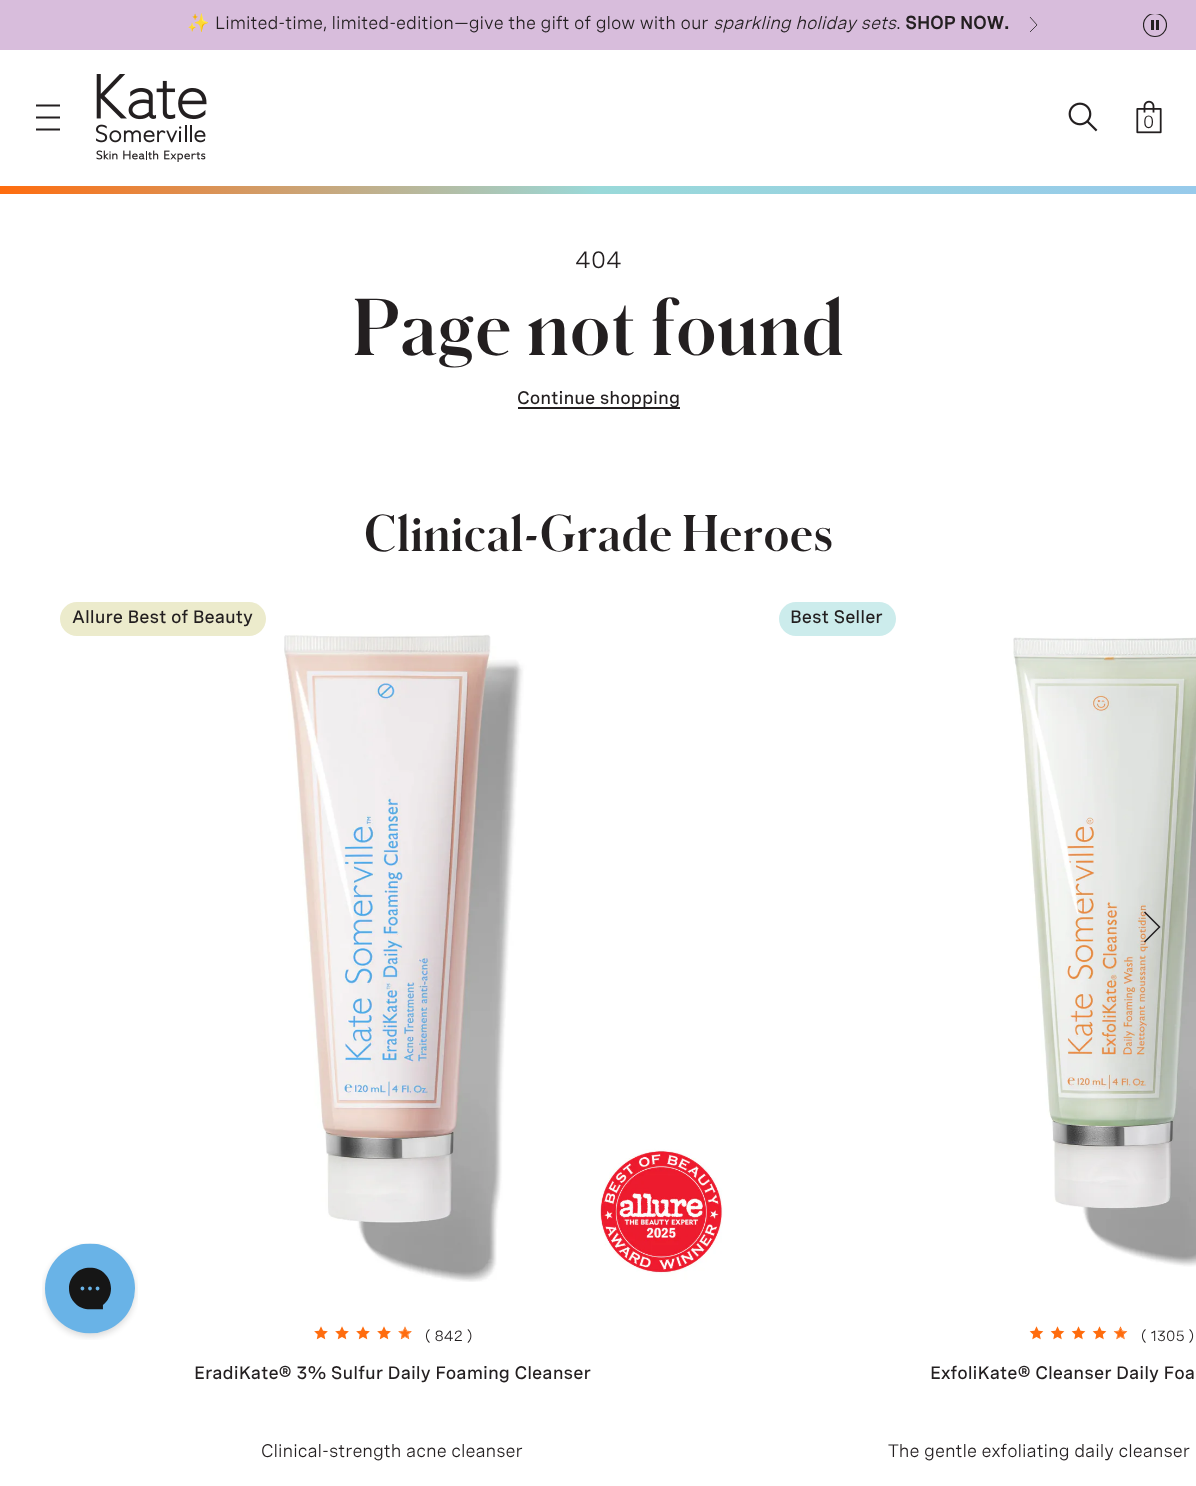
<?xml version="1.0" encoding="UTF-8"?>
<svg xmlns="http://www.w3.org/2000/svg" width="1196" height="1486">
    <style>*{font-kerning:none!important;font-variant-ligatures:none!important}</style>
    <defs>
        <clipPath id="clip1"><rect x="1143" y="14" width="24" height="24"/></clipPath>
        <linearGradient id="g1" gradientUnits="userSpaceOnUse" x1="0" y1="190" x2="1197" y2="190"><stop offset="0" stop-color="#FF6C0E"/><stop offset="0.5" stop-color="#99D9D9"/><stop offset="1" stop-color="#97CAEB"/></linearGradient>
        <clipPath id="clip2"><rect x="1142" y="1319" width="52" height="30"/></clipPath>
    </defs>
    <rect width="100%" height="100%" fill="#FFFFFF"/>
    <rect x="0" y="0" width="1196" height="50" fill="#D8BDDC"/>
    <text x="187" y="29" font-family="Noto Color Emoji" font-size="18" fill="#231F20">✨</text>
    <text x="215" y="29" font-family="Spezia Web" font-size="18" fill="#231F20">Limited-time, limited-edition—give the gift of glow with our</text>
    <text x="713" y="29" font-family="Spezia Web" font-size="18" font-style="italic" fill="#231F20">sparkling holiday sets</text>
    <text x="896" y="29" font-family="Spezia Web" font-size="18" fill="#231F20">.</text>
    <text x="905" y="29" font-family="Spezia Web" font-size="18" font-weight="700" fill="#231F20">SHOP NOW.</text>
    <path d="M 1030 17 L 1037 25 L 1030 32" fill="none" stroke="#231F20" stroke-width="0.8"/>
    <g clip-path="url(#clip1)">
        <circle cx="1155" cy="25" r="11.5" fill="none" stroke="#231F20" stroke-width="1.2"/>
    </g>
    <rect x="1151" y="20" width="3" height="10" fill="#231F20"/>
    <rect x="1156" y="20" width="3" height="10" fill="#231F20"/>
    <path d="M 36 105.5 H 60 M 36 117.5 H 60 M 36 129.5 H 60" fill="none" stroke="#231F20" stroke-width="1.9"/>
    <image x="96" y="74" width="111" height="88" href="img_01.png"/>
    <image x="1068" y="102" width="30" height="30" href="img_02.png"/>
    <image x="1136" y="100" width="26" height="34" href="img_03.png"/>
    <text x="1143" y="128" font-family="Spezia Web" font-size="18" fill="#231F20">0</text>
    <rect x="0" y="186" width="1196" height="8" fill="url(#g1)"/>
    <text x="575" y="268" font-family="Spezia Web" font-size="24" fill="#231F20">404</text>
    <text x="353" y="355" font-family="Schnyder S" font-size="75" font-weight="700" letter-spacing="1.5" fill="#231F20">Page not found</text>
    <text x="517" y="404" font-family="Spezia Web" font-size="18" font-weight="500" fill="#231F20">Continue shopping</text>
    <rect x="518" y="407" width="162" height="2" fill="#231F20"/>
    <text x="364" y="551" font-family="Schnyder S" font-size="48" font-weight="700" letter-spacing="1" fill="#231F20">Clinical-Grade Heroes</text>
    <rect x="60" y="602" width="206" height="34" rx="17" fill="#ECEBCC"/>
    <text x="72" y="623" font-family="Spezia Web" font-size="18" font-weight="500" fill="#231F20">Allure Best of Beauty</text>
    <image x="284" y="634" width="439" height="648" href="img_04.png"/>
    <image x="314" y="1326" width="14" height="14" href="img_05.png"/>
    <image x="335" y="1326" width="14" height="14" href="img_05.png"/>
    <image x="356" y="1326" width="14" height="14" href="img_05.png"/>
    <image x="377" y="1326" width="14" height="14" href="img_05.png"/>
    <image x="398" y="1326" width="14" height="14" href="img_05.png"/>
    <image x="399" y="1328" width="12" height="11" href="img_06.png"/>
    <image x="399" y="1328" width="11" height="10" href="img_07.png"/>
    <text x="425" y="1341" font-family="Spezia Web" font-size="15" fill="#231F20">( 842 )</text>
    <text x="194" y="1379" font-family="Spezia Web" font-size="18" font-weight="500" fill="#231F20">EradiKate® 3% Sulfur Daily Foaming Cleanser</text>
    <text x="261" y="1457" font-family="Spezia Web" font-size="18" fill="#231F20">Clinical-strength acne cleanser</text>
    <rect x="779" y="602" width="117" height="34" rx="17" fill="#CCECEC"/>
    <text x="790" y="623" font-family="Spezia Web" font-size="18" font-weight="500" fill="#231F20">Best Seller</text>
    <image x="1013" y="637" width="183" height="630" href="img_08.png"/>
    <image x="1029" y="1326" width="15" height="14" href="img_09.png"/>
    <image x="1050" y="1326" width="15" height="14" href="img_09.png"/>
    <image x="1071" y="1326" width="15" height="14" href="img_09.png"/>
    <image x="1092" y="1326" width="15" height="14" href="img_09.png"/>
    <image x="1113" y="1326" width="15" height="14" href="img_09.png"/>
    <image x="1115" y="1328" width="11" height="11" href="img_10.png"/>
    <image x="1115" y="1328" width="11" height="11" href="img_11.png"/>
    <g clip-path="url(#clip2)">
        <text x="1141" y="1341" font-family="Spezia Web" font-size="15" fill="#231F20">( 1305 )</text>
    </g>
    <text x="930" y="1379" font-family="Spezia Web" font-size="18" font-weight="500" fill="#231F20">ExfoliKate® Cleanser Daily Foa</text>
    <text x="888" y="1457" font-family="Spezia Web" font-size="18" fill="#231F20">The gentle exfoliating daily cleanser</text>
    <path d="M 1144.5 912 L 1159.5 927 L 1144.5 942" fill="none" stroke="#231F20" stroke-width="1.5"/>
    <image x="42" y="1243" width="96" height="97" href="img_12.png"/>
</svg>
